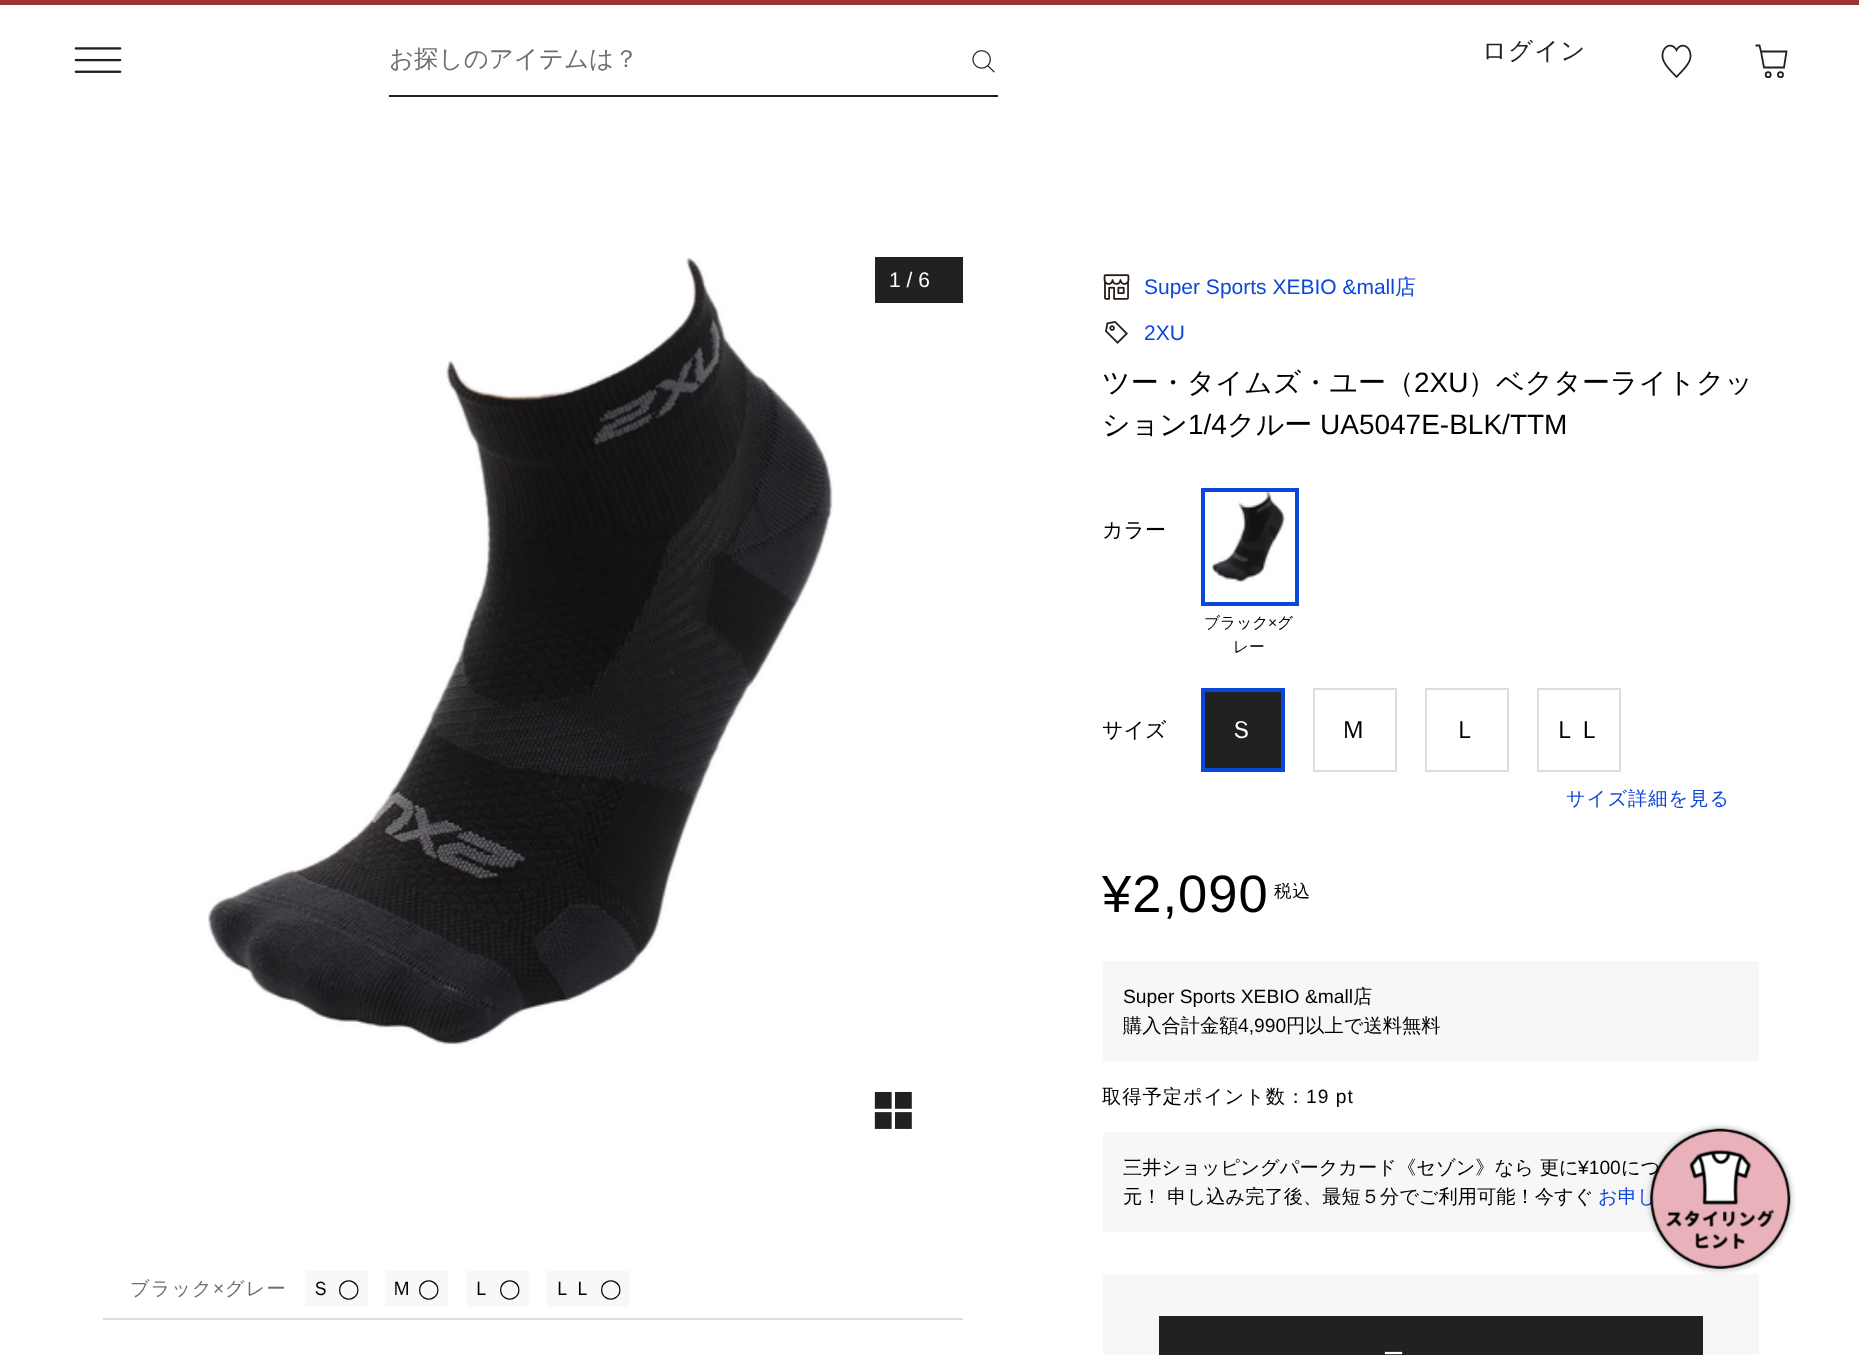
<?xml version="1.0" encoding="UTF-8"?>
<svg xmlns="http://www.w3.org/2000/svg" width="1859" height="1355">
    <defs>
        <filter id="blur1" x="-50%" y="-200%" width="200%" height="500%"><feGaussianBlur stdDeviation="2.5"/></filter>
    </defs>
    <rect width="100%" height="100%" fill="#FFFFFF"/>
    <rect x="0" y="0" width="1859" height="5" fill="#9D3434"/>
    <image x="74" y="47" width="48" height="26" href="img_01.png"/>
    <rect x="389" y="95" width="609" height="2" fill="#212121"/>
    <text x="389" y="67" font-family="WenQuanYi Zen Hei" font-size="24.5" font-weight="500" fill="#6F6F6F">お探しのアイテムは？</text>
    <image x="972" y="50" width="23" height="23" href="img_02.png"/>
    <text x="1482" y="59" font-family="WenQuanYi Zen Hei" font-size="24.5" font-weight="500" letter-spacing="1" fill="#212121">ログイン</text>
    <image x="1661" y="44" width="31" height="34" href="img_03.png"/>
    <path d="M 1755.5 45.5 H 1759.5 L 1761 51.5 M 1761 51.5 L 1764 67.5 H 1784 L 1786.5 51.5 Z" fill="none" stroke="#212121" stroke-width="1.8"/>
    <circle cx="1768.2" cy="74.7" r="2.5" fill="none" stroke="#212121" stroke-width="1.8"/>
    <circle cx="1780.5" cy="74.7" r="2.5" fill="none" stroke="#212121" stroke-width="1.8"/>
    <image x="207" y="257" width="626" height="788" href="img_04.png"/>
    <rect x="875" y="257" width="88" height="46" fill="#212121"/>
    <text x="889" y="287" font-family="Liberation Sans" font-size="21" fill="#FFFFFF">1 / 6</text>
    <image x="874" y="1091" width="38" height="38" href="img_05.png"/>
    <rect x="103" y="1318" width="860" height="2" fill="#DEDEDE"/>
    <text x="130" y="1295" font-family="WenQuanYi Zen Hei" font-size="19.25" font-weight="500" letter-spacing="1" fill="#6F6F6F">ブラック</text>
    <text x="213" y="1295" font-family="Liberation Sans" font-size="19.25" letter-spacing="1" fill="#6F6F6F">×</text>
    <text x="225" y="1295" font-family="WenQuanYi Zen Hei" font-size="19.25" font-weight="500" letter-spacing="1" fill="#6F6F6F">グレー</text>
    <rect x="305" y="1271" width="63" height="36" fill="#F8F8F8"/>
    <text x="311" y="1295" font-family="WenQuanYi Zen Hei" font-size="19.25" font-weight="500" letter-spacing="1" fill="#000000">Ｓ</text>
    <text x="338" y="1295" font-family="DejaVu Sans" font-size="19.25" letter-spacing="1" fill="#000000">◯</text>
    <rect x="385" y="1271" width="63" height="36" fill="#F8F8F8"/>
    <text x="392" y="1295" font-family="WenQuanYi Zen Hei" font-size="19.25" font-weight="500" letter-spacing="1" fill="#000000">Ｍ</text>
    <text x="418" y="1295" font-family="DejaVu Sans" font-size="19.25" letter-spacing="1" fill="#000000">◯</text>
    <rect x="466" y="1271" width="63" height="36" fill="#F8F8F8"/>
    <text x="472" y="1295" font-family="WenQuanYi Zen Hei" font-size="19.25" font-weight="500" letter-spacing="1" fill="#000000">Ｌ</text>
    <text x="499" y="1295" font-family="DejaVu Sans" font-size="19.25" letter-spacing="1" fill="#000000">◯</text>
    <rect x="546" y="1271" width="84" height="36" fill="#F8F8F8"/>
    <text x="553" y="1295" font-family="WenQuanYi Zen Hei" font-size="19.25" font-weight="500" letter-spacing="1" fill="#000000">ＬＬ</text>
    <text x="600" y="1295" font-family="DejaVu Sans" font-size="19.25" letter-spacing="1" fill="#000000">◯</text>
    <image x="1103" y="274" width="27" height="26" href="img_06.png"/>
    <text x="1144" y="294" font-family="Liberation Sans" font-size="21" fill="#0D46DB">Super Sports XEBIO &amp;mall</text>
    <text x="1395" y="294" font-family="WenQuanYi Zen Hei" font-size="21" font-weight="500" fill="#0D46DB">店</text>
    <image x="1105" y="321" width="23" height="23" href="img_07.png"/>
    <text x="1144" y="340" font-family="Liberation Sans" font-size="21" fill="#0D46DB">2XU</text>
    <text x="1102" y="392" font-family="WenQuanYi Zen Hei" font-size="28" font-weight="500" fill="#000000">ツー・タイムズ・ユー（</text>
    <text x="1414" y="392" font-family="Liberation Sans" font-size="28" fill="#000000">2XU</text>
    <text x="1468" y="392" font-family="WenQuanYi Zen Hei" font-size="28" font-weight="500" fill="#000000">）ベクターライトクッ</text>
    <text x="1102" y="434" font-family="WenQuanYi Zen Hei" font-size="28" font-weight="500" fill="#000000">ション</text>
    <text x="1188" y="434" font-family="Liberation Sans" font-size="28" fill="#000000">1/4</text>
    <text x="1227" y="434" font-family="WenQuanYi Zen Hei" font-size="28" font-weight="500" fill="#000000">クルー</text>
    <text x="1320" y="434" font-family="Liberation Sans" font-size="28" fill="#000000">UA5047E-BLK/TTM</text>
    <text x="1102" y="537" font-family="WenQuanYi Zen Hei" font-size="21" font-weight="500" fill="#000000">カラー</text>
    <image x="1211" y="492" width="74" height="91" href="img_08.png"/>
    <rect x="1203" y="490" width="94" height="114" fill="none" stroke="#0D46DB" stroke-width="4"/>
    <text x="1204" y="628" font-family="WenQuanYi Zen Hei" font-size="15.75" font-weight="500" fill="#000000">ブラック</text>
    <text x="1268" y="628" font-family="Liberation Sans" font-size="15.75" fill="#000000">×</text>
    <text x="1277" y="628" font-family="WenQuanYi Zen Hei" font-size="15.75" font-weight="500" fill="#000000">グ</text>
    <text x="1233" y="652" font-family="WenQuanYi Zen Hei" font-size="15.75" font-weight="500" fill="#000000">レー</text>
    <text x="1102" y="737" font-family="WenQuanYi Zen Hei" font-size="21" font-weight="500" fill="#000000">サイズ</text>
    <rect x="1203" y="690" width="80" height="80" fill="#212121" stroke="#0D46DB" stroke-width="4"/>
    <text x="1229" y="738" font-family="WenQuanYi Zen Hei" font-size="24.5" font-weight="500" fill="#FFFFFF">Ｓ</text>
    <rect x="1314" y="689" width="82" height="82" fill="none" stroke="#DEDEDE" stroke-width="2"/>
    <text x="1341" y="738" font-family="WenQuanYi Zen Hei" font-size="24.5" font-weight="500" fill="#000000">Ｍ</text>
    <rect x="1426" y="689" width="82" height="82" fill="none" stroke="#DEDEDE" stroke-width="2"/>
    <text x="1453" y="738" font-family="WenQuanYi Zen Hei" font-size="24.5" font-weight="500" fill="#000000">Ｌ</text>
    <rect x="1538" y="689" width="82" height="82" fill="none" stroke="#DEDEDE" stroke-width="2"/>
    <text x="1553" y="738" font-family="WenQuanYi Zen Hei" font-size="24.5" font-weight="500" fill="#000000">ＬＬ</text>
    <text x="1566" y="805" font-family="WenQuanYi Zen Hei" font-size="19.25" font-weight="500" letter-spacing="1" fill="#0D46DB">サイズ詳細を見る</text>
    <text x="1102" y="912" font-family="Liberation Sans" font-size="52.5" letter-spacing="1" fill="#000000">¥2,090</text>
    <text x="1274" y="897" font-family="WenQuanYi Zen Hei" font-size="17.5" font-weight="500" letter-spacing="1" fill="#000000">税込</text>
    <rect x="1103" y="961" width="656" height="100" fill="#F7F7F7"/>
    <text x="1123" y="1003" font-family="Liberation Sans" font-size="19.25" fill="#000000">Super Sports XEBIO &amp;mall</text>
    <text x="1353" y="1003" font-family="WenQuanYi Zen Hei" font-size="19.25" font-weight="500" fill="#000000">店</text>
    <text x="1123" y="1032" font-family="WenQuanYi Zen Hei" font-size="19.25" font-weight="500" fill="#000000">購入合計金額</text>
    <text x="1238" y="1032" font-family="Liberation Sans" font-size="19.25" fill="#000000">4,990</text>
    <text x="1286" y="1032" font-family="WenQuanYi Zen Hei" font-size="19.25" font-weight="500" fill="#000000">円以上で送料無料</text>
    <text x="1102" y="1103" font-family="WenQuanYi Zen Hei" font-size="19.25" font-weight="500" letter-spacing="1" fill="#000000">取得予定ポイント数：</text>
    <text x="1306" y="1103" font-family="Liberation Sans" font-size="19.25" letter-spacing="1" fill="#000000">19 pt</text>
    <rect x="1103" y="1132" width="656" height="100" fill="#F7F7F7"/>
    <text x="1123" y="1174" font-family="WenQuanYi Zen Hei" font-size="19.25" font-weight="500" fill="#000000">三井ショッピングパークカード《セゾン》なら 更に</text>
    <text x="1578" y="1174" font-family="Liberation Sans" font-size="19.25" fill="#000000">¥100</text>
    <text x="1621" y="1174" font-family="WenQuanYi Zen Hei" font-size="19.25" font-weight="500" fill="#000000">につ</text>
    <text x="1123" y="1203" font-family="WenQuanYi Zen Hei" font-size="19.25" font-weight="500" fill="#000000">元！ 申し込み完了後、最短５分でご利用可能！今すぐ</text>
    <text x="1598" y="1203" font-family="WenQuanYi Zen Hei" font-size="19.25" font-weight="500" fill="#0D46DB">お申し</text>
    <rect x="1103" y="1274" width="656" height="81" fill="#F7F7F7"/>
    <rect x="1159" y="1316" width="544" height="39" fill="#212121"/>
    <text x="1383" y="1361" font-family="WenQuanYi Zen Hei" font-size="21" font-weight="500" letter-spacing="2" fill="#FFFFFF">ー</text>
    <rect x="1649" y="1127" width="143" height="144" rx="71.5" fill="#000000" fill-opacity="0.2" filter="url(#blur1)"/>
    <image x="1650" y="1128" width="141" height="141" href="img_09.png"/>
</svg>
